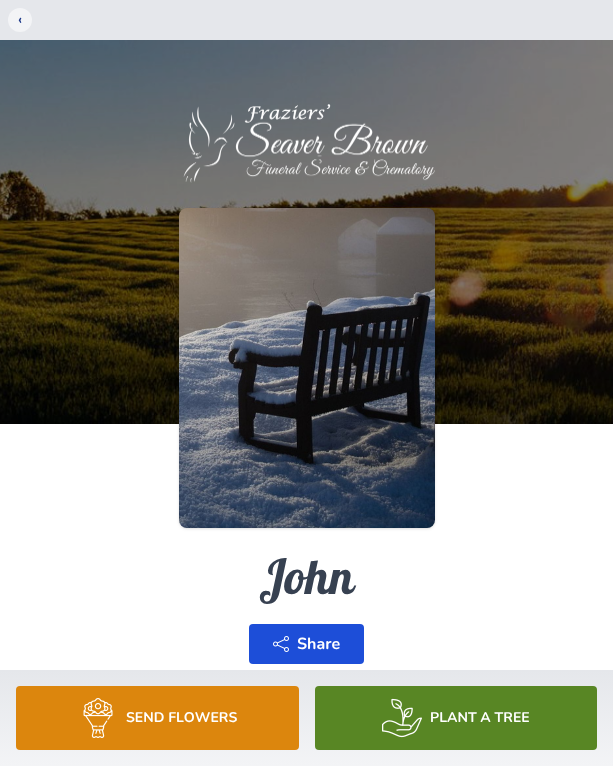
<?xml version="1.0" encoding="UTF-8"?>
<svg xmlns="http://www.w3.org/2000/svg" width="613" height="766">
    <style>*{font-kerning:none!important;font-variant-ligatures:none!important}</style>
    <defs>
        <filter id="blur1" x="-50%" y="-200%" width="200%" height="500%"><feGaussianBlur stdDeviation="1"/></filter>
        <filter id="blur2" x="-50%" y="-200%" width="200%" height="500%"><feGaussianBlur stdDeviation="1.5"/></filter>
        <linearGradient id="g1" gradientUnits="userSpaceOnUse" x1="307" y1="670" x2="307" y2="766"><stop offset="0" stop-color="#E5E7EB"/><stop offset="1" stop-color="#F3F4F6"/></linearGradient>
    </defs>
    <rect width="100%" height="100%" fill="#FFFFFF"/>
    <rect x="0" y="0" width="613" height="40" fill="#E5E7EB"/>
    <circle cx="20" cy="20" r="12" fill="#F3F4F6"/>
    <text x="18" y="24" font-family="Nunito" font-size="14" font-weight="700" fill="#1E3A8A">‹</text>
    <image x="0" y="40" width="613" height="384" href="img_01.png"/>
    <image x="183" y="104" width="252" height="79" href="img_02.png"/>
    <rect x="180" y="210" width="254" height="318" rx="7" fill="#000000" fill-opacity="0.1" filter="url(#blur1)"/>
    <rect x="179" y="209" width="256" height="320" rx="8" fill="#000000" fill-opacity="0.1" filter="url(#blur2)"/>
    <image x="179" y="208" width="256" height="320" href="img_03.png"/>
    <text x="259" y="594" font-family="Lobster" font-size="48" fill="#374151">John</text>
    <rect x="249" y="624" width="115" height="40" rx="4" fill="#1D4ED8"/>
    <image x="273" y="636" width="16" height="16" href="img_04.png"/>
    <text x="297" y="649" font-family="Nunito" font-size="16" font-weight="700" fill="#FFFFFF">Share</text>
    <rect x="0" y="670" width="613" height="96" fill="url(#g1)"/>
    <rect x="16" y="686" width="283" height="64" rx="4" fill="#DC860D"/>
    <image x="83" y="698" width="30" height="40" href="img_05.png"/>
    <text x="126" y="722" font-family="Nunito" font-size="14" font-weight="700" fill="#FFFFFF">SEND FLOWERS</text>
    <rect x="315" y="686" width="282" height="64" rx="4" fill="#588624"/>
    <image x="382" y="698" width="40" height="40" href="img_06.png"/>
    <text x="430" y="722" font-family="Nunito" font-size="14" font-weight="700" fill="#FFFFFF">PLANT A TREE</text>
</svg>
